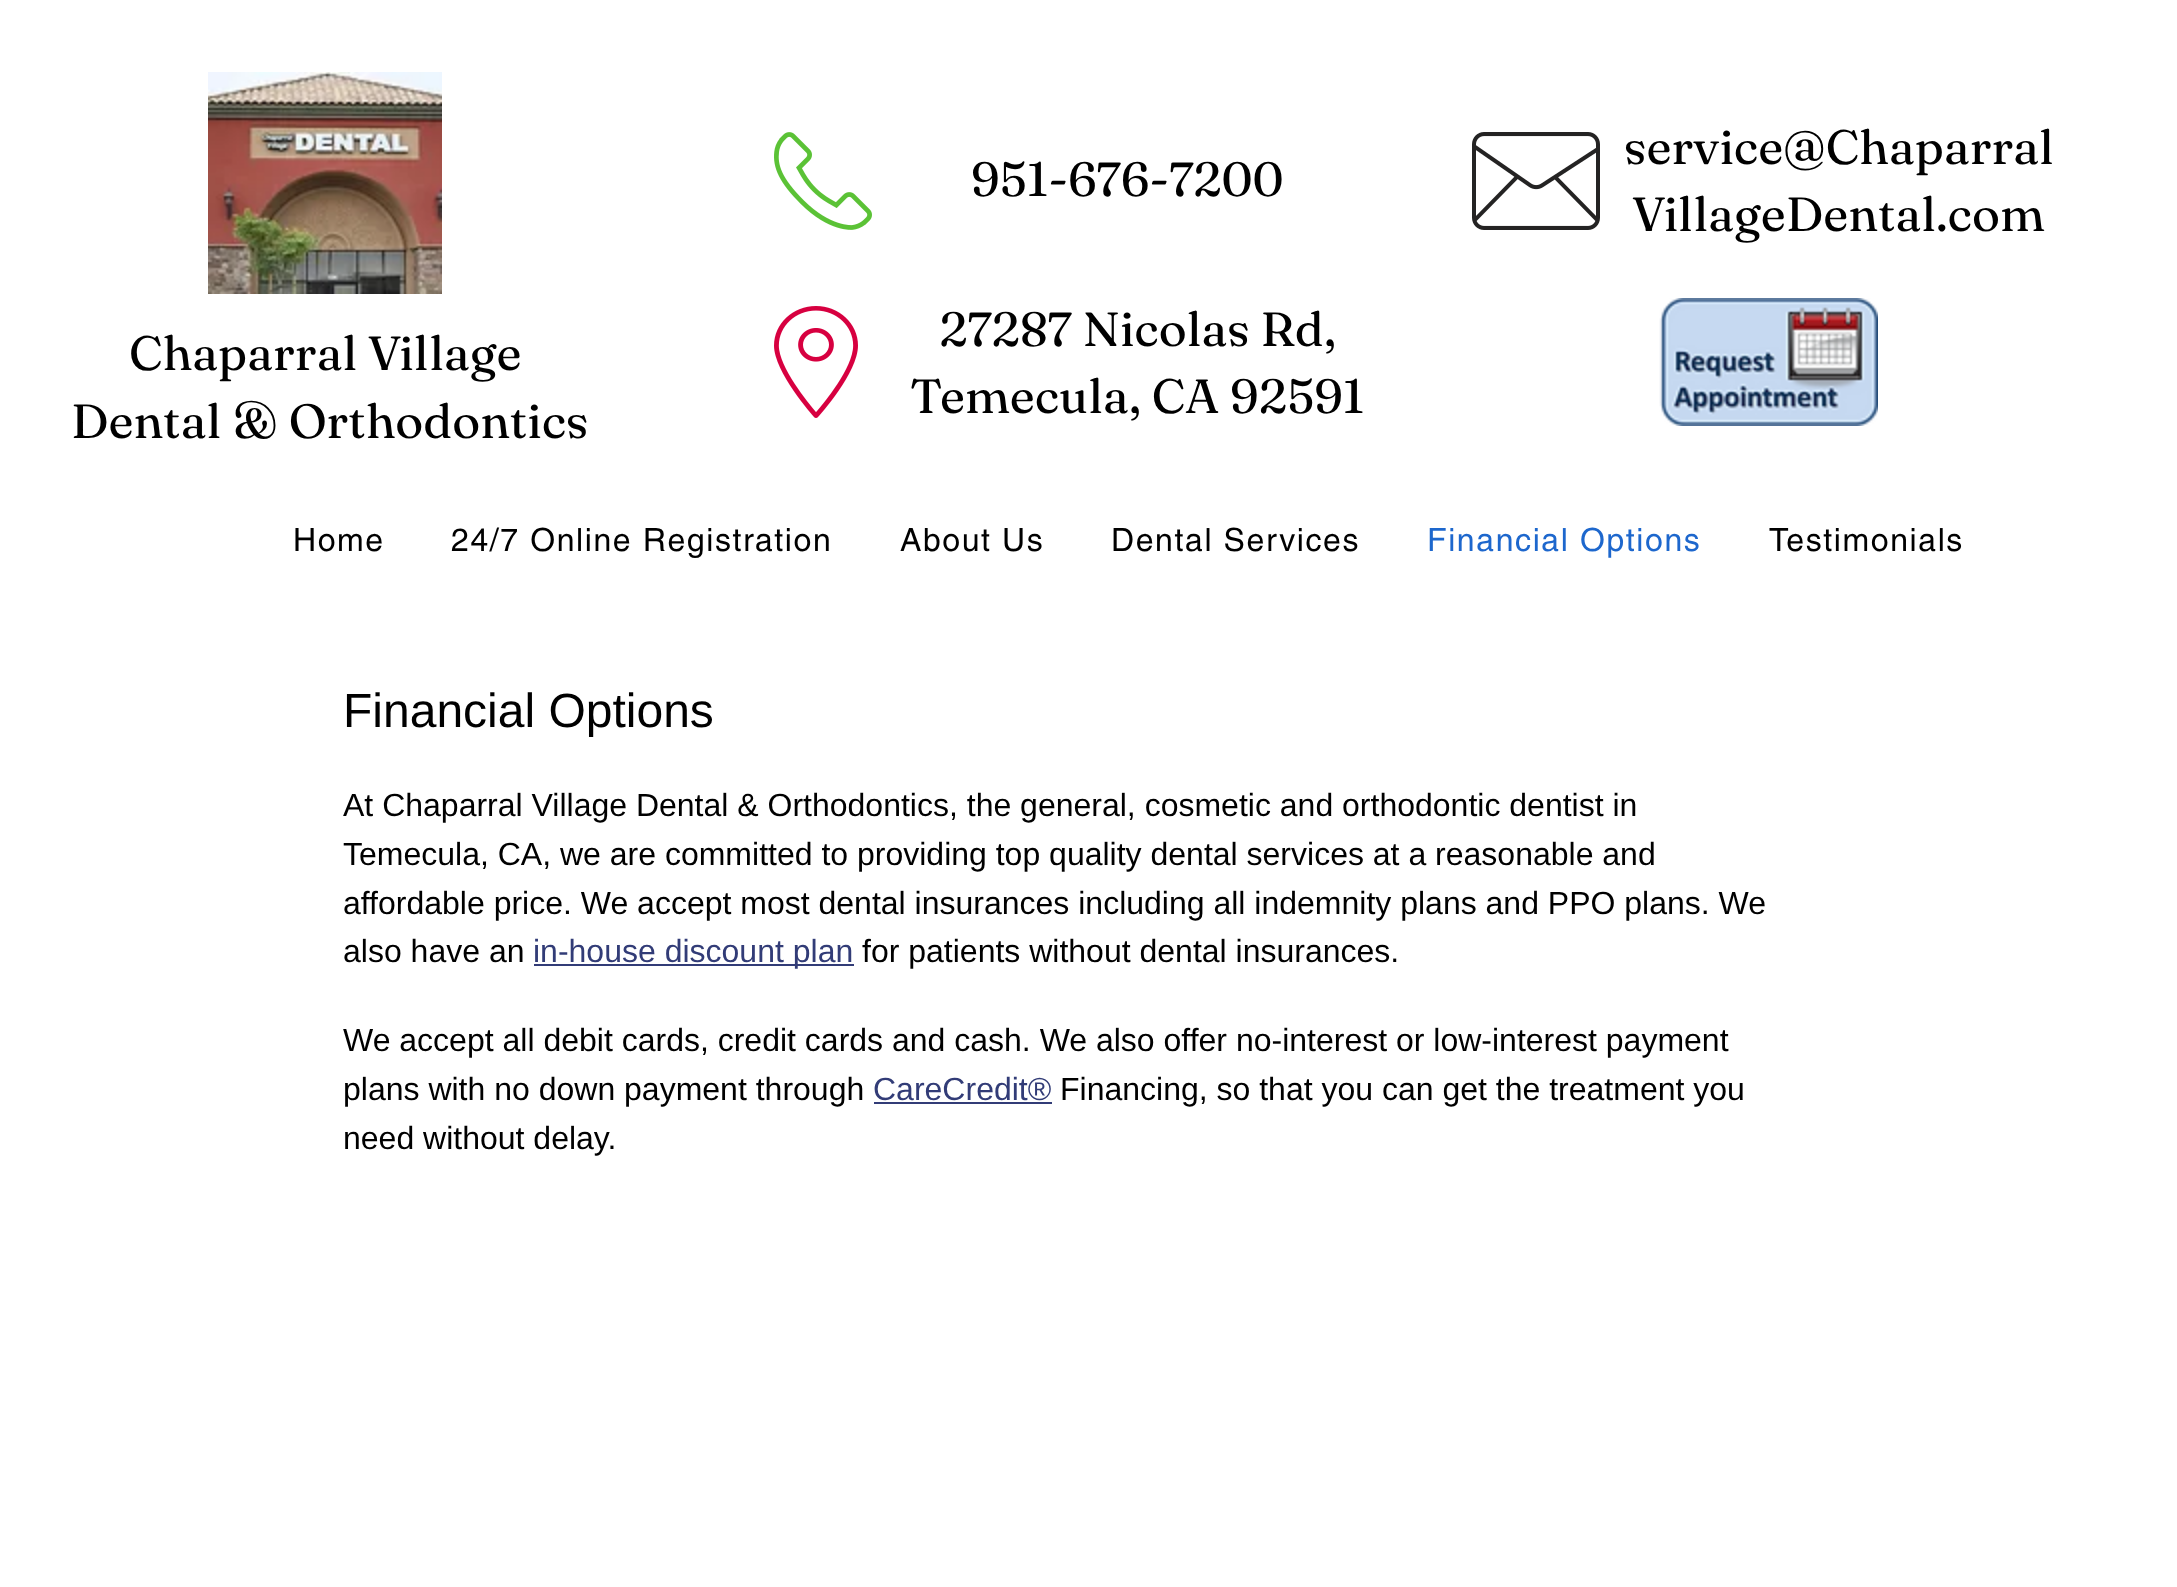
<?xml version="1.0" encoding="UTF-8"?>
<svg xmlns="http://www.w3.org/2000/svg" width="2177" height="1587">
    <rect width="100%" height="100%" fill="#FFFFFF"/>
    <image x="208" y="72" width="234" height="222" href="img_01.png"/>
    <image x="774" y="132" width="98" height="98" href="img_02.png"/>
    <text x="971" y="196" font-family="Fraunces" font-size="48" fill="#000000">951-676-7200</text>
    <image x="774" y="306" width="84" height="112" href="img_03.png"/>
    <text x="939" y="346" font-family="Fraunces" font-size="48" fill="#000000">27287 Nicolas Rd,</text>
    <text x="910" y="413" font-family="Fraunces" font-size="48" fill="#000000">Temecula, CA 92591</text>
    <image x="1472" y="132" width="128" height="98" href="img_04.png"/>
    <text x="1624" y="164" font-family="Fraunces" font-size="48" fill="#000000">service@Chaparral</text>
    <text x="1632" y="231" font-family="Fraunces" font-size="48" fill="#000000">VillageDental.com</text>
    <text x="129" y="370" font-family="Fraunces" font-size="48" fill="#000000">Chaparral Village</text>
    <text x="71" y="438" font-family="Fraunces" font-size="48" fill="#000000">Dental &amp; Orthodontics</text>
    <image x="1659" y="298" width="219" height="128" href="img_05.png"/>
    <text x="293" y="551" font-family="helvetica" font-size="32" letter-spacing="1.6" fill="#000000">Home</text>
    <text x="451" y="551" font-family="helvetica" font-size="32" letter-spacing="1.6" fill="#000000">24/7 Online Registration</text>
    <text x="900" y="551" font-family="helvetica" font-size="32" letter-spacing="1.6" fill="#000000">About Us</text>
    <text x="1111" y="551" font-family="helvetica" font-size="32" letter-spacing="1.6" fill="#000000">Dental Services</text>
    <text x="1427" y="551" font-family="helvetica" font-size="32" letter-spacing="1.6" fill="#1D67CD">Financial Options</text>
    <text x="1769" y="551" font-family="helvetica" font-size="32" letter-spacing="1.6" fill="#000000">Testimonials</text>
    <text x="343" y="727" font-family="Liberation Sans" font-size="48" fill="#000000">Financial Options</text>
    <text font-family="Liberation Sans" font-size="32" fill="#000000">
        <tspan x="343" y="816">At Chaparral Village Dental &amp; Orthodontics, the general, cosmetic and orthodontic dentist in</tspan>
        <tspan x="343" y="865">Temecula, CA, we are committed to providing top quality dental services at a reasonable and</tspan>
        <tspan x="343" y="914">affordable price. We accept most dental insurances including all indemnity plans and PPO plans. We</tspan>
        <tspan x="343" y="962">also have an</tspan>
    </text>
    <rect x="534" y="964" width="320" height="2" fill="#323C77"/>
    <text x="533" y="962" font-family="Liberation Sans" font-size="32" fill="#323C77">in-house discount plan</text>
    <text x="862" y="962" font-family="Liberation Sans" font-size="32" fill="#000000">for patients without dental insurances.</text>
    <text font-family="Liberation Sans" font-size="32" fill="#000000">
        <tspan x="343" y="1051">We accept all debit cards, credit cards and cash. We also offer no-interest or low-interest payment</tspan>
        <tspan x="343" y="1100">plans with no down payment through</tspan>
    </text>
    <text x="873" y="1100" font-family="Liberation Sans" font-size="32" fill="#323C77">CareCredit®</text>
    <rect x="874" y="1102" width="178" height="2" fill="#323C77"/>
    <text x="1060" y="1100" font-family="Liberation Sans" font-size="32" fill="#000000">Financing, so that you can get the treatment you</text>
    <text x="343" y="1149" font-family="Liberation Sans" font-size="32" fill="#000000">need without delay.</text>
</svg>
